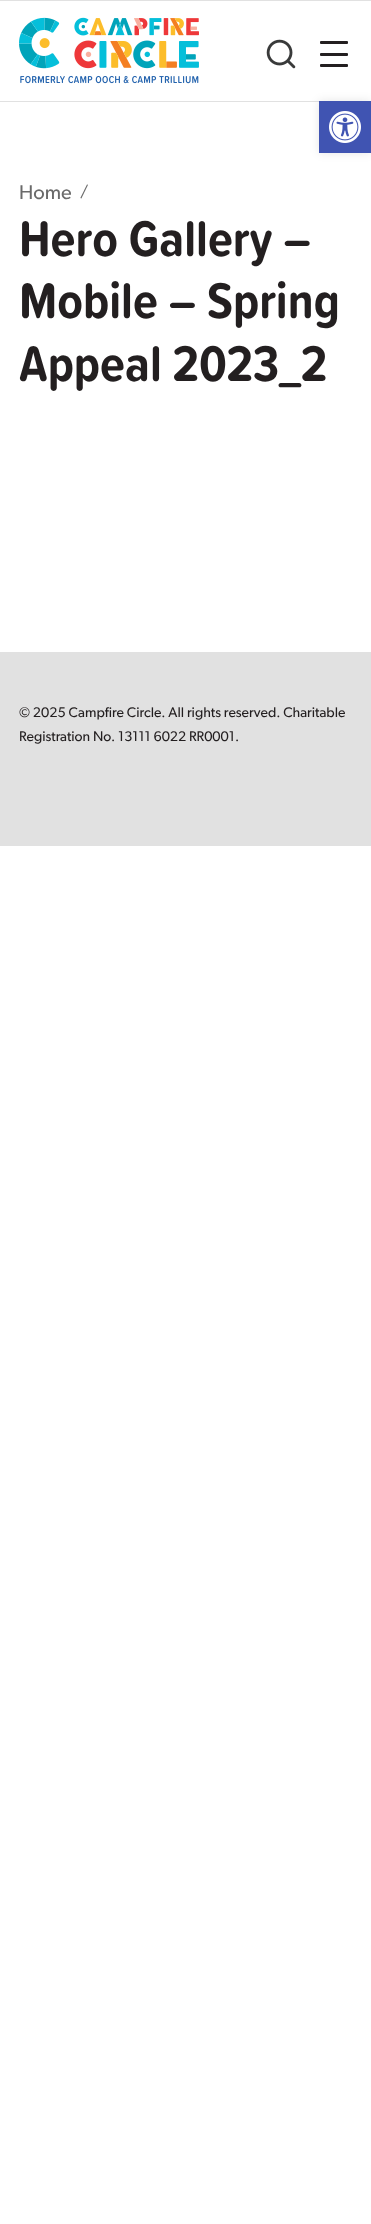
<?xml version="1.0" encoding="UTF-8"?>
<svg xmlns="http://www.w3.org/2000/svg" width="371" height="2224">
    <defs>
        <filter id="blur1" x="-50%" y="-200%" width="200%" height="500%"><feGaussianBlur stdDeviation="5"/></filter>
    </defs>
    <rect width="100%" height="100%" fill="#FFFFFF"/>
    <rect x="0" y="101" width="319" height="1" fill="#E1E1E1"/>
    <rect x="319" y="101" width="52" height="52" fill="#000000" fill-opacity="0.1" filter="url(#blur1)"/>
    <rect x="319" y="101" width="52" height="52" fill="#4054B2"/>
    <image x="329" y="111" width="32" height="32" href="img_01.png"/>
    <rect x="0" y="0" width="371" height="1" fill="#E1E1E1"/>
    <image x="19" y="17" width="180" height="67" href="img_02.png"/>
    <image x="266" y="39" width="30" height="30" href="img_03.png"/>
    <rect x="320" y="41" width="28" height="3" rx="1" fill="#231F20"/>
    <rect x="320" y="53" width="28" height="3" rx="1" fill="#231F20"/>
    <rect x="320" y="64" width="28" height="3" rx="1" fill="#231F20"/>
    <text x="19" y="199" font-family="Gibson" font-size="20" fill="#6A6A6A">Home</text>
    <text x="80" y="197" font-family="Gibson" font-size="16" fill="#6A6A6A">/</text>
    <text font-family="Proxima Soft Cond" font-size="52" font-weight="700" fill="#231F20">
        <tspan x="19" y="256">Hero Gallery –</tspan>
        <tspan x="19" y="318">Mobile – Spring</tspan>
        <tspan x="19" y="381">Appeal 2023_2</tspan>
    </text>
    <rect x="0" y="652" width="371" height="194" fill="#E1E1E1"/>
    <text font-family="Gibson" font-size="14" fill="#231F20">
        <tspan x="19" y="717">© 2025 Campfire Circle. All rights reserved. Charitable</tspan>
        <tspan x="19" y="741">Registration No. 13111 6022 RR0001.</tspan>
    </text>
</svg>
